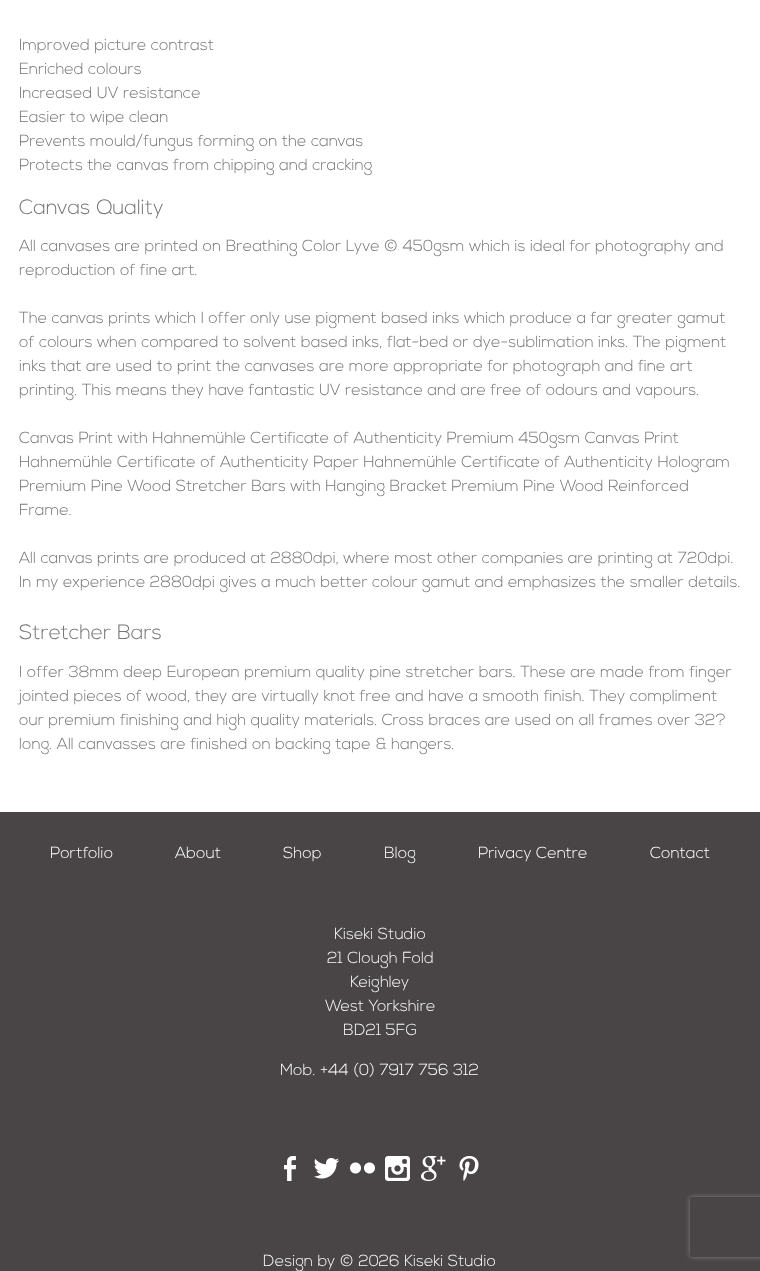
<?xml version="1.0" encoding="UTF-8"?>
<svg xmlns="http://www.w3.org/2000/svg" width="760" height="1271">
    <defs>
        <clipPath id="clip1"><path d="M 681 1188 H 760 V 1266 H 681 Z M 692 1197 H 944 C 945 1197 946 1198 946 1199 V 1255 C 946 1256 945 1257 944 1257 H 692 C 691 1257 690 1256 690 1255 V 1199 C 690 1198 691 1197 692 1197 Z" clip-rule="evenodd"/></clipPath>
        <filter id="blur1" x="-50%" y="-200%" width="200%" height="500%"><feGaussianBlur stdDeviation="2.5"/></filter>
    </defs>
    <rect width="100%" height="100%" fill="#FFFFFF"/>
    <text font-family="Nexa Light" font-size="16" font-weight="300" fill="#777777">
        <tspan x="19" y="50">Improved picture contrast</tspan>
        <tspan x="19" y="74">Enriched colours</tspan>
        <tspan x="19" y="98">Increased UV resistance</tspan>
        <tspan x="19" y="122">Easier to wipe clean</tspan>
        <tspan x="19" y="146">Prevents mould/fungus forming on the canvas</tspan>
        <tspan x="19" y="170">Protects the canvas from chipping and cracking</tspan>
    </text>
    <text x="19" y="214" font-family="Nexa Light" font-size="20.75" font-weight="300" fill="#777777">Canvas Quality</text>
    <text font-family="Nexa Light" font-size="16" font-weight="300" fill="#777777">
        <tspan x="19" y="251">All canvases are printed on Breathing Color Lyve © 450gsm which is ideal for photography and</tspan>
        <tspan x="19" y="275">reproduction of fine art.</tspan>
    </text>
    <text font-family="Nexa Light" font-size="16" font-weight="300" fill="#777777">
        <tspan x="19" y="323">The canvas prints which I offer only use pigment based inks which produce a far greater gamut</tspan>
        <tspan x="19" y="347">of colours when compared to solvent based inks, flat-bed or dye-sublimation inks. The pigment</tspan>
        <tspan x="19" y="371">inks that are used to print the canvases are more appropriate for photograph and fine art</tspan>
        <tspan x="19" y="395">printing. This means they have fantastic UV resistance and are free of odours and vapours.</tspan>
    </text>
    <text font-family="Nexa Light" font-size="16" font-weight="300" fill="#777777">
        <tspan x="19" y="443">Canvas Print with Hahnemühle Certificate of Authenticity Premium 450gsm Canvas Print</tspan>
        <tspan x="19" y="467">Hahnemühle Certificate of Authenticity Paper Hahnemühle Certificate of Authenticity Hologram</tspan>
        <tspan x="19" y="491">Premium Pine Wood Stretcher Bars with Hanging Bracket Premium Pine Wood Reinforced</tspan>
        <tspan x="19" y="515">Frame.</tspan>
    </text>
    <text font-family="Nexa Light" font-size="16" font-weight="300" fill="#777777">
        <tspan x="19" y="563">All canvas prints are produced at 2880dpi, where most other companies are printing at 720dpi.</tspan>
        <tspan x="19" y="587">In my experience 2880dpi gives a much better colour gamut and emphasizes the smaller details.</tspan>
    </text>
    <text x="19" y="639" font-family="Nexa Light" font-size="20.75" font-weight="300" fill="#777777">Stretcher Bars</text>
    <text font-family="Nexa Light" font-size="16" font-weight="300" fill="#777777">
        <tspan x="19" y="677">I offer 38mm deep European premium quality pine stretcher bars. These are made from finger</tspan>
        <tspan x="19" y="701">jointed pieces of wood, they are virtually knot free and have a smooth finish. They compliment</tspan>
        <tspan x="19" y="725">our premium finishing and high quality materials. Cross braces are used on all frames over 32?</tspan>
        <tspan x="19" y="749">long. All canvasses are finished on backing tape &amp; hangers.</tspan>
    </text>
    <rect x="0" y="812" width="760" height="459" fill="#494546"/>
    <text x="50" y="858" font-family="Nexa Light" font-size="16" font-weight="300" fill="#FFFFFF">Portfolio</text>
    <text x="175" y="858" font-family="Nexa Light" font-size="16" font-weight="300" fill="#FFFFFF">About</text>
    <text x="283" y="858" font-family="Nexa Light" font-size="16" font-weight="300" fill="#FFFFFF">Shop</text>
    <text x="384" y="858" font-family="Nexa Light" font-size="16" font-weight="300" fill="#FFFFFF">Blog</text>
    <text x="478" y="858" font-family="Nexa Light" font-size="16" font-weight="300" fill="#FFFFFF">Privacy Centre</text>
    <text x="650" y="858" font-family="Nexa Light" font-size="16" font-weight="300" fill="#FFFFFF">Contact</text>
    <text x="334" y="939" font-family="Nexa Light" font-size="16" font-weight="300" fill="#F8F9FA">Kiseki Studio</text>
    <text x="327" y="963" font-family="Nexa Light" font-size="16" font-weight="300" fill="#F8F9FA">21 Clough Fold</text>
    <text x="350" y="987" font-family="Nexa Light" font-size="16" font-weight="300" fill="#F8F9FA">Keighley</text>
    <text x="325" y="1011" font-family="Nexa Light" font-size="16" font-weight="300" fill="#F8F9FA">West Yorkshire</text>
    <text x="343" y="1035" font-family="Nexa Light" font-size="16" font-weight="300" fill="#F8F9FA">BD21 5FG</text>
    <text x="280" y="1075" font-family="Nexa Light" font-size="16" font-weight="300" fill="#F8F9FA">Mob.</text>
    <text x="320" y="1075" font-family="Nexa Light" font-size="16" font-weight="300" fill="#FFFFFF">+44 (0) 7917 756 312</text>
    <image x="284" y="1156" width="12" height="25" href="img_01.png"/>
    <image x="314" y="1158" width="25" height="21" href="img_02.png"/>
    <image x="350" y="1162" width="25" height="12" href="img_03.png"/>
    <image x="385" y="1156" width="25" height="25" href="img_04.png"/>
    <image x="421" y="1156" width="25" height="25" href="img_05.png"/>
    <image x="459" y="1156" width="20" height="25" href="img_06.png"/>
    <text x="263" y="1266" font-family="Nexa Light" font-size="16" font-weight="300" fill="#F8F9FA">Design by © 2026 Kiseki Studio</text>
    <g clip-path="url(#clip1)">
        <rect x="690" y="1197" width="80" height="60" rx="2" fill="#808080" filter="url(#blur1)"/>
    </g>
</svg>
